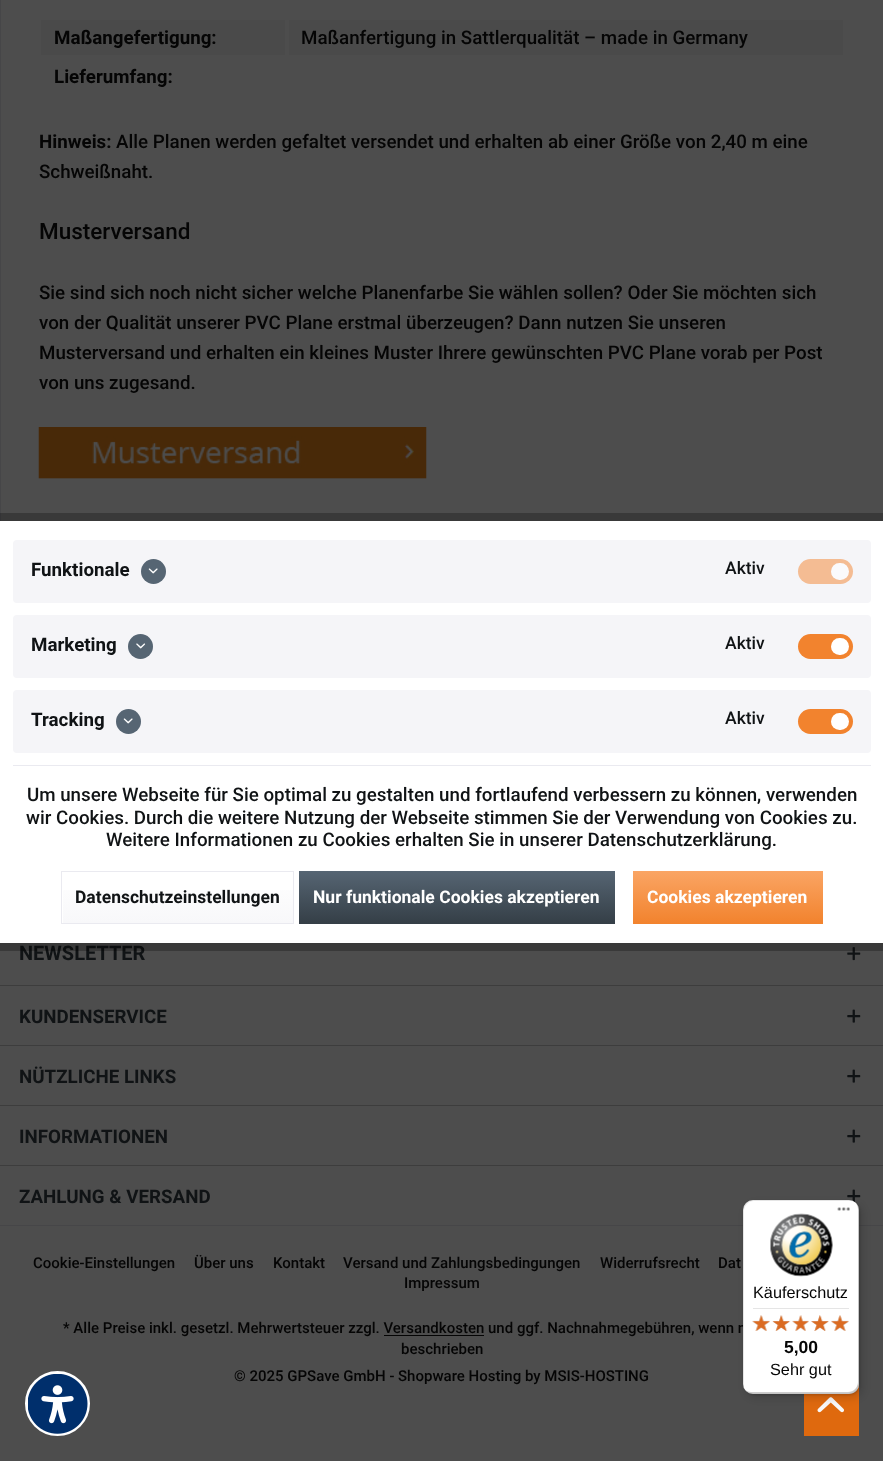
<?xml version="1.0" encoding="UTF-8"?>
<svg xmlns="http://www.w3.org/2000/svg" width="883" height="1461">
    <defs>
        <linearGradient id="g1" gradientUnits="userSpaceOnUse" x1="178" y1="872" x2="178" y2="922"><stop offset="0" stop-color="#FFFFFF"/><stop offset="1" stop-color="#F8F8FA"/></linearGradient>
        <linearGradient id="g2" gradientUnits="userSpaceOnUse" x1="457" y1="871" x2="457" y2="923"><stop offset="0" stop-color="#566573"/><stop offset="1" stop-color="#353F47"/></linearGradient>
        <linearGradient id="g3" gradientUnits="userSpaceOnUse" x1="728" y1="871" x2="728" y2="923"><stop offset="0" stop-color="#FAA564"/><stop offset="1" stop-color="#F2832E"/></linearGradient>
        <filter id="blur1" x="-50%" y="-200%" width="200%" height="500%"><feGaussianBlur stdDeviation="5"/></filter>
        <filter id="blur2" x="-50%" y="-200%" width="200%" height="500%"><feGaussianBlur stdDeviation="1"/></filter>
    </defs>
    <rect width="100%" height="100%" fill="#4D4D4D"/>
    <rect x="0.5" y="-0.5" width="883" height="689" fill="none" stroke="#464648"/>
    <rect x="41" y="20" width="244" height="35" fill="#4A4A4A"/>
    <text x="54" y="44" font-family="Roboto" font-size="18.75" font-weight="700" fill="#050505">Maßangefertigung:</text>
    <rect x="289" y="20" width="554" height="35" fill="#4A4A4A"/>
    <text x="301" y="44" font-family="Roboto" font-size="18.75" font-weight="500" fill="#050505">Maßanfertigung in Sattlerqualität – made in Germany</text>
    <text x="54" y="83" font-family="Roboto" font-size="18.75" font-weight="700" fill="#050505">Lieferumfang:</text>
    <text x="39" y="148" font-family="Roboto" font-size="18.75" font-weight="700" fill="#050505">Hinweis:</text>
    <text x="116" y="148" font-family="Roboto" font-size="18.75" font-weight="500" fill="#050505">Alle Planen werden gefaltet versendet und erhalten ab einer Größe von 2,40 m eine</text>
    <text x="39" y="178" font-family="Roboto" font-size="18.75" font-weight="500" fill="#050505">Schweißnaht.</text>
    <text x="39" y="239" font-family="Roboto" font-size="22.5" font-weight="500" fill="#050505">Musterversand</text>
    <text font-family="Roboto" font-size="18.75" font-weight="500" fill="#050505">
        <tspan x="39" y="299">Sie sind sich noch nicht sicher welche Planenfarbe Sie wählen sollen? Oder Sie möchten sich</tspan>
        <tspan x="39" y="329">von der Qualität unserer PVC Plane erstmal überzeugen? Dann nutzen Sie unseren</tspan>
        <tspan x="39" y="359">Musterversand und erhalten ein kleines Muster Ihrere gewünschten PVC Plane vorab per Post</tspan>
        <tspan x="39" y="389">von uns zugesand.</tspan>
    </text>
    <image x="38" y="427" width="389" height="52" href="img_01.png"/>
    <text x="19" y="960" font-family="Roboto" font-size="20" font-weight="700" fill="#101315">NEWSLETTER</text>
    <image x="847" y="947" width="14" height="14" href="img_02.png"/>
    <rect x="0" y="985" width="883" height="1" fill="#3D3D3D"/>
    <text x="19" y="1023" font-family="Roboto" font-size="18.75" font-weight="700" fill="#101315">KUNDENSERVICE</text>
    <image x="847" y="1009" width="14" height="14" href="img_03.png"/>
    <rect x="0" y="1045" width="883" height="1" fill="#3D3D3D"/>
    <text x="19" y="1083" font-family="Roboto" font-size="18.75" font-weight="700" fill="#101315">NÜTZLICHE LINKS</text>
    <image x="847" y="1069" width="14" height="14" href="img_03.png"/>
    <rect x="0" y="1105" width="883" height="1" fill="#3D3D3D"/>
    <text x="19" y="1143" font-family="Roboto" font-size="18.75" font-weight="700" fill="#101315">INFORMATIONEN</text>
    <image x="847" y="1129" width="14" height="14" href="img_03.png"/>
    <rect x="0" y="1165" width="883" height="1" fill="#3D3D3D"/>
    <text x="19" y="1203" font-family="Roboto" font-size="18.75" font-weight="700" fill="#101315">ZAHLUNG &amp; VERSAND</text>
    <image x="847" y="1189" width="14" height="13" href="img_04.png"/>
    <rect x="0" y="1225" width="883" height="1" fill="#464648"/>
    <text x="33" y="1268" font-family="Roboto" font-size="15" font-weight="500" fill="#050505">Cookie-Einstellungen</text>
    <text x="194" y="1268" font-family="Roboto" font-size="15" font-weight="500" fill="#050505">Über uns</text>
    <text x="273" y="1268" font-family="Roboto" font-size="15" font-weight="500" fill="#050505">Kontakt</text>
    <text x="343" y="1268" font-family="Roboto" font-size="15" font-weight="500" fill="#050505">Versand und Zahlungsbedingungen</text>
    <text x="600" y="1268" font-family="Roboto" font-size="15" font-weight="500" fill="#050505">Widerrufsrecht</text>
    <text x="718" y="1268" font-family="Roboto" font-size="15" font-weight="500" fill="#050505">Dat</text>
    <text x="404" y="1288" font-family="Roboto" font-size="15" font-weight="500" fill="#050505">Impressum</text>
    <text x="63" y="1333" font-family="Roboto" font-size="15" font-weight="500" fill="#050505">* Alle Preise inkl. gesetzl. Mehrwertsteuer zzgl. Versandkosten und ggf. Nachnahmegebühren, wenn n</text>
    <rect x="384" y="1335" width="100" height="1" fill="#050505"/>
    <text x="401" y="1354" font-family="Roboto" font-size="15" font-weight="500" fill="#050505">beschrieben</text>
    <text x="234" y="1381" font-family="Roboto" font-size="15" font-weight="500" fill="#050505">© 2025 GPSave GmbH - Shopware Hosting by MSIS-HOSTING</text>
    <rect x="804" y="1384" width="55" height="52" fill="#DF690E"/>
    <image x="817" y="1397" width="27" height="16" href="img_05.png"/>
    <rect x="-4.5" y="517.5" width="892" height="429" fill="none" stroke="#000000" stroke-opacity="0.25" stroke-width="9"/>
    <rect x="0" y="521" width="883" height="422" fill="#FFFFFF"/>
    <rect x="13" y="765" width="858" height="1" fill="#EAEAF0"/>
    <rect x="13" y="540" width="858" height="63" rx="4" fill="#F5F5F8"/>
    <text x="31" y="576" font-family="Roboto" font-size="18.75" font-weight="700" fill="#101315">Funktionale</text>
    <circle cx="153.5" cy="571.5" r="12.5" fill="#566573"/>
    <image x="148" y="568" width="10" height="6" href="img_06.png"/>
    <text x="725" y="574" font-family="Roboto" font-size="17.5" font-weight="500" fill="#101315">Aktiv</text>
    <rect x="798" y="559" width="55" height="25" rx="12.5" fill="#F4BC93"/>
    <rect x="831" y="563" width="18" height="17" rx="8.5" fill="#FAFAFC"/>
    <rect x="13" y="615" width="858" height="63" rx="4" fill="#F5F5F8"/>
    <text x="31" y="651" font-family="Roboto" font-size="18.75" font-weight="700" fill="#101315">Marketing</text>
    <circle cx="140.5" cy="646.5" r="12.5" fill="#566573"/>
    <image x="136" y="643" width="10" height="6" href="img_07.png"/>
    <text x="725" y="649" font-family="Roboto" font-size="17.5" font-weight="500" fill="#101315">Aktiv</text>
    <rect x="798" y="634" width="55" height="25" rx="12.5" fill="#F2832E"/>
    <rect x="831" y="638" width="18" height="17" rx="8.5" fill="#FFFFFF"/>
    <rect x="13" y="690" width="858" height="63" rx="4" fill="#F5F5F8"/>
    <text x="31" y="726" font-family="Roboto" font-size="18.75" font-weight="700" fill="#101315">Tracking</text>
    <circle cx="128.5" cy="721.5" r="12.5" fill="#566573"/>
    <image x="123" y="718" width="10" height="6" href="img_06.png"/>
    <text x="725" y="724" font-family="Roboto" font-size="17.5" font-weight="500" fill="#101315">Aktiv</text>
    <rect x="798" y="709" width="55" height="25" rx="12.5" fill="#F2832E"/>
    <rect x="831" y="713" width="18" height="17" rx="8.5" fill="#FFFFFF"/>
    <text x="27" y="801" font-family="Roboto" font-size="18.75" font-weight="500" fill="#101315">Um unsere Webseite für Sie optimal zu gestalten und fortlaufend verbessern zu können, verwenden</text>
    <text x="26" y="824" font-family="Roboto" font-size="18.75" font-weight="500" fill="#101315">wir Cookies. Durch die weitere Nutzung der Webseite stimmen Sie der Verwendung von Cookies zu.</text>
    <text x="106" y="846" font-family="Roboto" font-size="18.75" font-weight="500" fill="#101315">Weitere Informationen zu Cookies erhalten Sie in unserer Datenschutzerklärung.</text>
    <rect x="63" y="890" width="230" height="33" fill="url(#g1)"/>
    <rect x="61.5" y="871.5" width="232" height="52" fill="none" stroke="#EAEAF0"/>
    <text x="75" y="903" font-family="Roboto" font-size="17.5" font-weight="700" fill="#101315">Datenschutzeinstellungen</text>
    <rect x="299" y="871" width="316" height="53" fill="url(#g2)"/>
    <text x="313" y="903" font-family="Roboto" font-size="17.5" font-weight="700" fill="#FFFFFF">Nur funktionale Cookies akzeptieren</text>
    <rect x="633" y="871" width="190" height="53" fill="url(#g3)"/>
    <text x="647" y="903" font-family="Roboto" font-size="17.5" font-weight="700" fill="#FFFFFF">Cookies akzeptieren</text>
    <rect x="746" y="1204" width="117" height="194" rx="10" fill="#000000" fill-opacity="0.15" filter="url(#blur1)"/>
    <rect x="744" y="1201" width="116" height="194" rx="10" fill="#000000" fill-opacity="0.15" filter="url(#blur2)"/>
    <rect x="743" y="1200" width="116" height="194" rx="10" fill="#FFFFFF"/>
    <path d="M 754 1201 H 850 C 853 1201 855 1202 857 1203 C 855 1201 852 1200 849 1200 H 753 C 747 1200 743 1204 743 1210 V 1384 C 743 1386 744 1389 745 1390 C 744 1389 744 1387 744 1385 V 1211 C 744 1206 748 1201 754 1201 Z" fill="#000000" fill-opacity="0.1"/>
    <path d="M 745 1390 C 747 1392 750 1394 753 1394 H 849 C 855 1394 859 1390 859 1384 V 1210 C 859 1207 858 1204 856 1202 C 857 1204 858 1206 858 1209 V 1382 C 858 1388 853 1392 848 1392 H 751 C 749 1392 747 1391 745 1390 Z" fill="#000000" fill-opacity="0.2"/>
    <path d="M 747 1392 C 748 1393 751 1394 753 1394 H 849 C 855 1394 859 1390 859 1384 V 1210 C 859 1207 858 1204 855 1202 C 857 1204 858 1207 858 1209 V 1383 C 858 1389 854 1393 848 1393 H 752 C 750 1393 748 1393 747 1392 Z" fill="#323232" fill-opacity="0.2"/>
    <path d="M 747 1392 C 748 1393 751 1394 753 1394 H 849 C 855 1394 859 1390 859 1384 V 1210 C 859 1207 858 1204 855 1202 C 857 1204 858 1207 858 1209 V 1383 C 858 1389 854 1393 848 1393 H 752 C 750 1393 748 1393 747 1392 Z" fill="#FFFFFF" fill-opacity="0.3"/>
    <image x="837" y="1207" width="13" height="4" href="img_08.png"/>
    <image x="770" y="1213" width="63" height="64" href="img_09.png"/>
    <text x="753" y="1298" font-family="Liberation Sans" font-size="16.25" fill="#050505">Käuferschutz</text>
    <rect x="753" y="1308" width="96" height="1" fill="#E5E5E5"/>
    <image x="752" y="1315" width="18" height="16" href="img_10.png"/>
    <image x="773" y="1315" width="17" height="16" href="img_11.png"/>
    <image x="792" y="1315" width="17" height="16" href="img_12.png"/>
    <image x="811" y="1315" width="18" height="16" href="img_13.png"/>
    <image x="831" y="1315" width="18" height="16" href="img_14.png"/>
    <image x="752" y="1315" width="18" height="16" href="img_15.png"/>
    <image x="772" y="1315" width="19" height="16" href="img_16.png"/>
    <image x="792" y="1315" width="17" height="16" href="img_17.png"/>
    <image x="811" y="1315" width="18" height="16" href="img_18.png"/>
    <image x="831" y="1315" width="18" height="16" href="img_19.png"/>
    <text x="784" y="1353" font-family="Liberation Sans" font-size="17.5" font-weight="700" fill="#050505">5,00</text>
    <text x="770" y="1375" font-family="Liberation Sans" font-size="16.25" fill="#050505">Sehr gut</text>
    <circle cx="57.5" cy="1403.5" r="31" fill="#FFFFFF" stroke="#FFFFFF" stroke-width="3"/>
    <image x="28" y="1374" width="60" height="60" href="img_20.png"/>
</svg>
